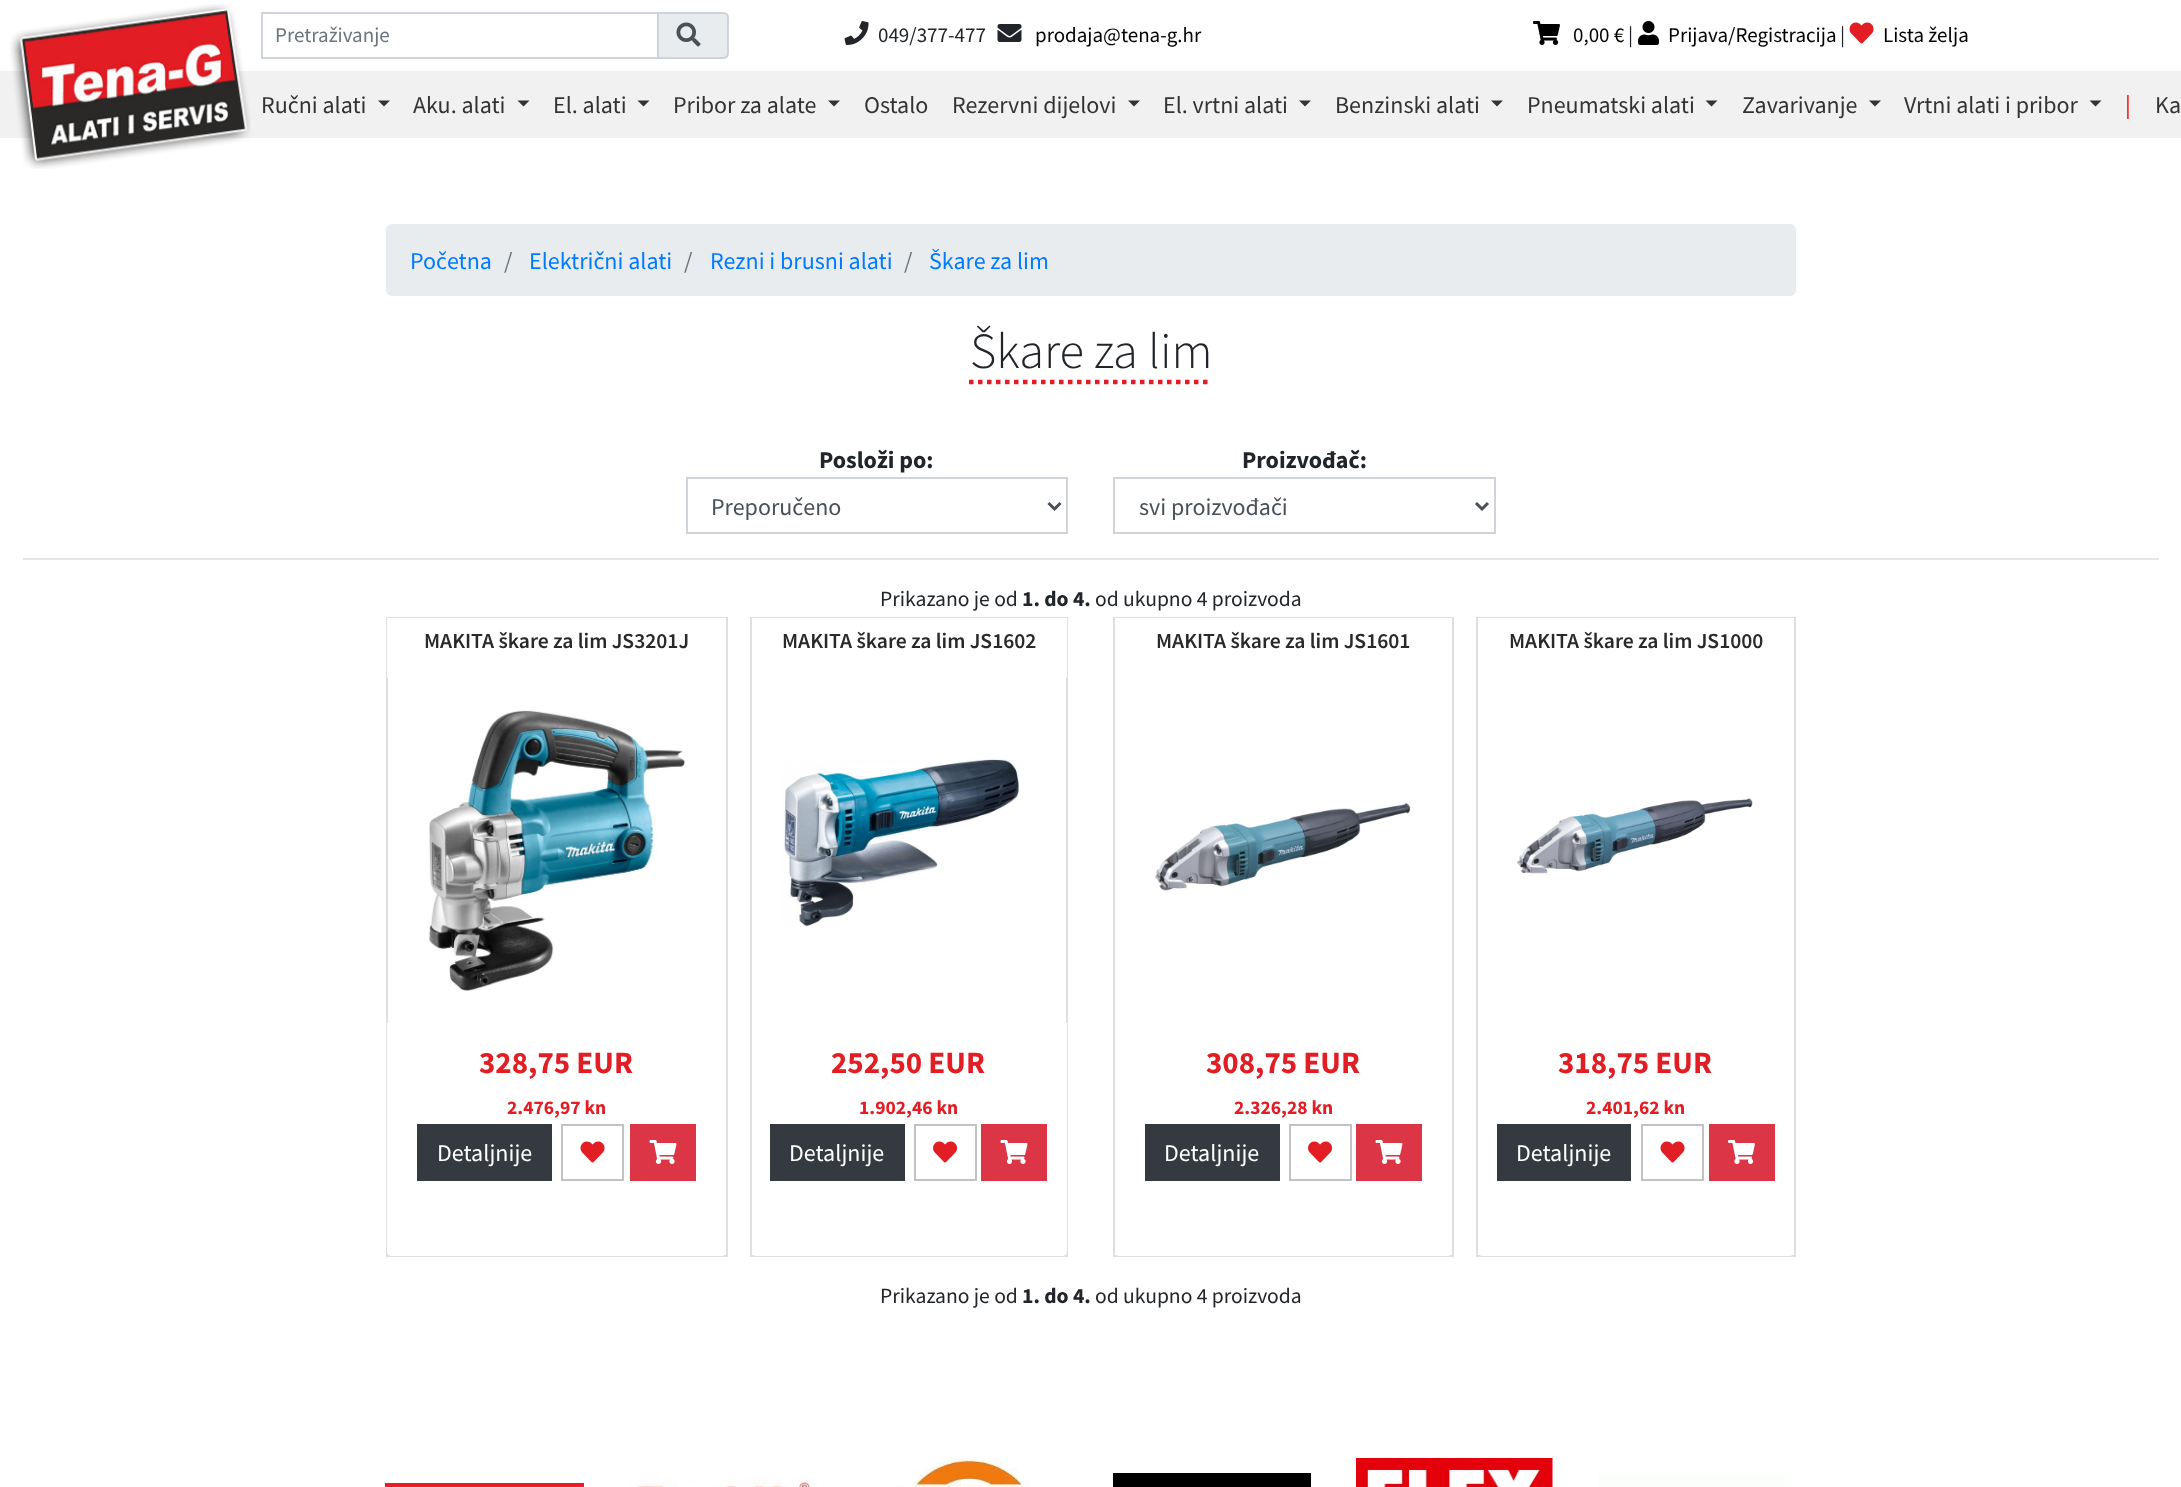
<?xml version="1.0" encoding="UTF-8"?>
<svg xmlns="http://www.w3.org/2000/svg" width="2181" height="1487">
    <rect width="100%" height="100%" fill="#FFFFFF"/>
    <rect x="0" y="71" width="2181" height="67" fill="#F1F1F1"/>
    <image x="10" y="4" width="241" height="165" href="img_01.png"/>
    <path d="M 658 13 H 723 C 726 13 728 15 728 18 V 53 C 728 56 726 58 723 58 H 658 Z" fill="#E9ECEF" stroke="#CED4DA" stroke-width="2"/>
    <rect x="262" y="13" width="396" height="45" fill="none" stroke="#CED4DA" stroke-width="2"/>
    <text x="275" y="42" font-family="Source Sans Pro" font-size="21" fill="#6C757D">Pretraživanje</text>
    <image x="676" y="22" width="25" height="25" href="img_02.png"/>
    <image x="844" y="21" width="25" height="24" href="img_03.png"/>
    <text x="878" y="42" font-family="Source Sans Pro" font-size="21" fill="#212529">049/377-477</text>
    <image x="997" y="24" width="25" height="18" href="img_04.png"/>
    <text x="1035" y="42" font-family="Source Sans Pro" font-size="21" fill="#000000">prodaja@tena-g.hr</text>
    <image x="1533" y="21" width="27" height="24" href="img_05.png"/>
    <text x="1573" y="42" font-family="Source Sans Pro" font-size="21" fill="#000000">0,00 €</text>
    <text x="1628" y="42" font-family="Source Sans Pro" font-size="21" fill="#212529">|</text>
    <image x="1638" y="21" width="21" height="24" href="img_06.png"/>
    <text x="1668" y="42" font-family="Source Sans Pro" font-size="21" fill="#000000">Prijava/Registracija</text>
    <text x="1840" y="42" font-family="Source Sans Pro" font-size="21" fill="#212529">|</text>
    <image x="1849" y="22" width="25" height="22" href="img_07.png"/>
    <text x="1883" y="42" font-family="Source Sans Pro" font-size="21" fill="#000000">Lista želja</text>
    <text x="261" y="113" font-family="Source Sans Pro" font-size="24" fill="#333333">Ručni alati</text>
    <path d="M 378 100.5 H 390 L 384 106.5 Z" fill="#333333"/>
    <text x="413" y="113" font-family="Source Sans Pro" font-size="24" fill="#333333">Aku. alati</text>
    <path d="M 517.5 100.5 H 529.5 L 523.5 106.5 Z" fill="#333333"/>
    <text x="553" y="113" font-family="Source Sans Pro" font-size="24" fill="#333333">El. alati</text>
    <path d="M 637.5 100.5 H 649.5 L 643.5 106.5 Z" fill="#333333"/>
    <text x="673" y="113" font-family="Source Sans Pro" font-size="24" fill="#333333">Pribor za alate</text>
    <path d="M 828 100.5 H 840 L 834 106.5 Z" fill="#333333"/>
    <text x="864" y="113" font-family="Source Sans Pro" font-size="24" fill="#333333">Ostalo</text>
    <text x="952" y="113" font-family="Source Sans Pro" font-size="24" fill="#333333">Rezervni dijelovi</text>
    <path d="M 1128 100.5 H 1140 L 1134 106.5 Z" fill="#333333"/>
    <text x="1163" y="113" font-family="Source Sans Pro" font-size="24" fill="#333333">El. vrtni alati</text>
    <path d="M 1299 100.5 H 1311 L 1305 106.5 Z" fill="#333333"/>
    <text x="1335" y="113" font-family="Source Sans Pro" font-size="24" fill="#333333">Benzinski alati</text>
    <path d="M 1491 100.5 H 1503 L 1497 106.5 Z" fill="#333333"/>
    <text x="1527" y="113" font-family="Source Sans Pro" font-size="24" fill="#333333">Pneumatski alati</text>
    <path d="M 1705.5 100.5 H 1717.5 L 1711.5 106.5 Z" fill="#333333"/>
    <text x="1742" y="113" font-family="Source Sans Pro" font-size="24" fill="#333333">Zavarivanje</text>
    <path d="M 1869 100.5 H 1881 L 1875 106.5 Z" fill="#333333"/>
    <text x="1904" y="113" font-family="Source Sans Pro" font-size="24" fill="#333333">Vrtni alati i pribor</text>
    <path d="M 2089.5 100.5 H 2101.5 L 2095.5 106.5 Z" fill="#333333"/>
    <text x="2125" y="113" font-family="Source Sans Pro" font-size="24" fill="#FF0000">|</text>
    <text x="2155" y="113" font-family="Source Sans Pro" font-size="24" fill="#333333">Ka</text>
    <rect x="386" y="224" width="1410" height="72" rx="6" fill="#E9ECEF"/>
    <text x="410" y="269" font-family="Source Sans Pro" font-size="24" fill="#007BFF">Početna</text>
    <text x="504" y="269" font-family="Source Sans Pro" font-size="24" fill="#6C757D">/</text>
    <text x="529" y="269" font-family="Source Sans Pro" font-size="24" fill="#007BFF">Električni alati</text>
    <text x="684" y="269" font-family="Source Sans Pro" font-size="24" fill="#6C757D">/</text>
    <text x="710" y="269" font-family="Source Sans Pro" font-size="24" fill="#007BFF">Rezni i brusni alati</text>
    <text x="904" y="269" font-family="Source Sans Pro" font-size="24" fill="#6C757D">/</text>
    <text x="929" y="269" font-family="Source Sans Pro" font-size="24" fill="#007BFF">Škare za lim</text>
    <path d="M 969 382 H 1212" fill="none" stroke="#E21D24" stroke-width="4.5" stroke-dasharray="4.5 4.5"/>
    <text x="970" y="368" font-family="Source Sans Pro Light" font-size="50.5" font-weight="300" fill="#212529">Škare za lim</text>
    <text x="819" y="468" font-family="Source Sans Pro" font-size="24" font-weight="700" fill="#212529">Posloži po:</text>
    <rect x="687" y="478" width="380" height="55" fill="none" stroke="#CED4DA" stroke-width="2"/>
    <path d="M 1048.5 503 L 1054.5 509 L 1060.5 503" fill="none" stroke="#495057" stroke-width="3"/>
    <text x="711" y="515" font-family="Source Sans Pro" font-size="24" fill="#495057">Preporučeno</text>
    <text x="1242" y="468" font-family="Source Sans Pro" font-size="24" font-weight="700" fill="#212529">Proizvođač:</text>
    <rect x="1114" y="478" width="381" height="55" fill="none" stroke="#CED4DA" stroke-width="2"/>
    <path d="M 1476 503 L 1482 509 L 1488 503" fill="none" stroke="#495057" stroke-width="3"/>
    <text x="1139" y="515" font-family="Source Sans Pro" font-size="24" fill="#495057">svi proizvođači</text>
    <rect x="23" y="558" width="2136" height="2" fill="#E6E6E6"/>
    <text x="880" y="606" font-family="Source Sans Pro" font-size="21.6" fill="#212529">Prikazano je od</text>
    <text x="1022" y="606" font-family="Source Sans Pro" font-size="21.6" font-weight="700" fill="#212529">1. do 4.</text>
    <text x="1095" y="606" font-family="Source Sans Pro" font-size="21.6" fill="#212529">od ukupno 4 proizvoda</text>
    <rect x="387" y="618" width="340" height="638" fill="none" stroke="#DFDFDF" stroke-width="2"/>
    <rect x="387" y="618" width="339" height="60" fill="#FFFFFF"/>
    <text x="424" y="648" font-family="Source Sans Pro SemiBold" font-size="21.6" font-weight="600" fill="#2A2927">MAKITA škare za lim JS3201J</text>
    <image x="428" y="710" width="257" height="281" href="img_08.png"/>
    <path d="M 387 1023 H 726 V 1251 C 726 1254 724 1256 721 1256 H 392 C 389 1256 387 1254 387 1251 Z" fill="#FFFFFF"/>
    <text x="479" y="1073" font-family="Source Sans Pro" font-size="31" font-weight="700" fill="#E21D24">328,75 EUR</text>
    <text x="507" y="1114" font-family="Source Sans Pro" font-size="19.5" font-weight="700" fill="#E21D24">2.476,97 kn</text>
    <rect x="417" y="1124" width="135" height="57" fill="#343A40"/>
    <text x="437" y="1161" font-family="Source Sans Pro" font-size="24" fill="#FFFFFF">Detaljnije</text>
    <rect x="562" y="1125" width="61" height="55" fill="none" stroke="#C2C2C2" stroke-width="2"/>
    <image x="580" y="1141" width="25" height="22" href="img_07.png"/>
    <rect x="630" y="1124" width="66" height="57" fill="#DC3545"/>
    <image x="649" y="1140" width="28" height="24" href="img_09.png"/>
    <rect x="751" y="618" width="316" height="638" fill="none" stroke="#DFDFDF" stroke-width="2"/>
    <rect x="752" y="618" width="315" height="60" fill="#FFFFFF"/>
    <text x="782" y="648" font-family="Source Sans Pro SemiBold" font-size="21.6" font-weight="600" fill="#2A2927">MAKITA škare za lim JS1602</text>
    <image x="782" y="759" width="237" height="167" href="img_10.png"/>
    <path d="M 752 1023 H 1067 V 1251 C 1067 1254 1065 1256 1062 1256 H 757 C 754 1256 752 1254 752 1251 Z" fill="#FFFFFF"/>
    <text x="831" y="1073" font-family="Source Sans Pro" font-size="31" font-weight="700" fill="#E21D24">252,50 EUR</text>
    <text x="859" y="1114" font-family="Source Sans Pro" font-size="19.5" font-weight="700" fill="#E21D24">1.902,46 kn</text>
    <rect x="770" y="1124" width="135" height="57" fill="#343A40"/>
    <text x="789" y="1161" font-family="Source Sans Pro" font-size="24" fill="#FFFFFF">Detaljnije</text>
    <rect x="915" y="1125" width="61" height="55" fill="none" stroke="#C2C2C2" stroke-width="2"/>
    <image x="933" y="1141" width="24" height="22" href="img_11.png"/>
    <rect x="981" y="1124" width="66" height="57" fill="#DC3545"/>
    <image x="1000" y="1140" width="28" height="24" href="img_09.png"/>
    <rect x="1114" y="618" width="339" height="638" fill="none" stroke="#DFDFDF" stroke-width="2"/>
    <rect x="1115" y="618" width="337" height="1" fill="#FFFFFF"/>
    <text x="1156" y="648" font-family="Source Sans Pro SemiBold" font-size="21.6" font-weight="600" fill="#2A2927">MAKITA škare za lim JS1601</text>
    <image x="1155" y="803" width="256" height="88" href="img_12.png"/>
    <path d="M 1115 1023 H 1452 V 1251 C 1452 1254 1450 1256 1447 1256 H 1120 C 1117 1256 1115 1254 1115 1251 Z" fill="#FFFFFF"/>
    <text x="1206" y="1073" font-family="Source Sans Pro" font-size="31" font-weight="700" fill="#E21D24">308,75 EUR</text>
    <text x="1234" y="1114" font-family="Source Sans Pro" font-size="19.5" font-weight="700" fill="#E21D24">2.326,28 kn</text>
    <rect x="1145" y="1124" width="135" height="57" fill="#343A40"/>
    <text x="1164" y="1161" font-family="Source Sans Pro" font-size="24" fill="#FFFFFF">Detaljnije</text>
    <rect x="1290" y="1125" width="61" height="55" fill="none" stroke="#C2C2C2" stroke-width="2"/>
    <image x="1308" y="1141" width="24" height="22" href="img_11.png"/>
    <rect x="1356" y="1124" width="66" height="57" fill="#DC3545"/>
    <image x="1375" y="1140" width="28" height="24" href="img_09.png"/>
    <rect x="1477" y="618" width="318" height="638" fill="none" stroke="#DFDFDF" stroke-width="2"/>
    <rect x="1478" y="618" width="316" height="1" fill="#FFFFFF"/>
    <text x="1509" y="648" font-family="Source Sans Pro SemiBold" font-size="21.6" font-weight="600" fill="#2A2927">MAKITA škare za lim JS1000</text>
    <image x="1516" y="798" width="237" height="76" href="img_13.png"/>
    <path d="M 1478 1023 H 1794 V 1251 C 1794 1254 1792 1256 1789 1256 H 1483 C 1480 1256 1478 1254 1478 1251 Z" fill="#FFFFFF"/>
    <text x="1558" y="1073" font-family="Source Sans Pro" font-size="31" font-weight="700" fill="#E21D24">318,75 EUR</text>
    <text x="1586" y="1114" font-family="Source Sans Pro" font-size="19.5" font-weight="700" fill="#E21D24">2.401,62 kn</text>
    <rect x="1497" y="1124" width="134" height="57" fill="#343A40"/>
    <text x="1516" y="1161" font-family="Source Sans Pro" font-size="24" fill="#FFFFFF">Detaljnije</text>
    <rect x="1642" y="1125" width="61" height="55" fill="none" stroke="#C2C2C2" stroke-width="2"/>
    <image x="1660" y="1141" width="25" height="22" href="img_07.png"/>
    <rect x="1709" y="1124" width="66" height="57" fill="#DC3545"/>
    <image x="1728" y="1140" width="27" height="24" href="img_14.png"/>
    <text x="880" y="1303" font-family="Source Sans Pro" font-size="21.6" fill="#212529">Prikazano je od</text>
    <text x="1022" y="1303" font-family="Source Sans Pro" font-size="21.6" font-weight="700" fill="#212529">1. do 4.</text>
    <text x="1095" y="1303" font-family="Source Sans Pro" font-size="21.6" fill="#212529">od ukupno 4 proizvoda</text>
    <rect x="385" y="1483" width="199" height="4" fill="#ED1C24"/>
    <image x="629" y="1479" width="188" height="8" href="img_15.png"/>
    <image x="898" y="1457" width="131" height="30" href="img_16.png"/>
    <rect x="1113" y="1473" width="198" height="14" fill="#000000"/>
    <image x="1356" y="1458" width="197" height="29" href="img_17.png"/>
    <rect x="1598" y="1473" width="191" height="14" fill="#FCFEFB"/>
</svg>
